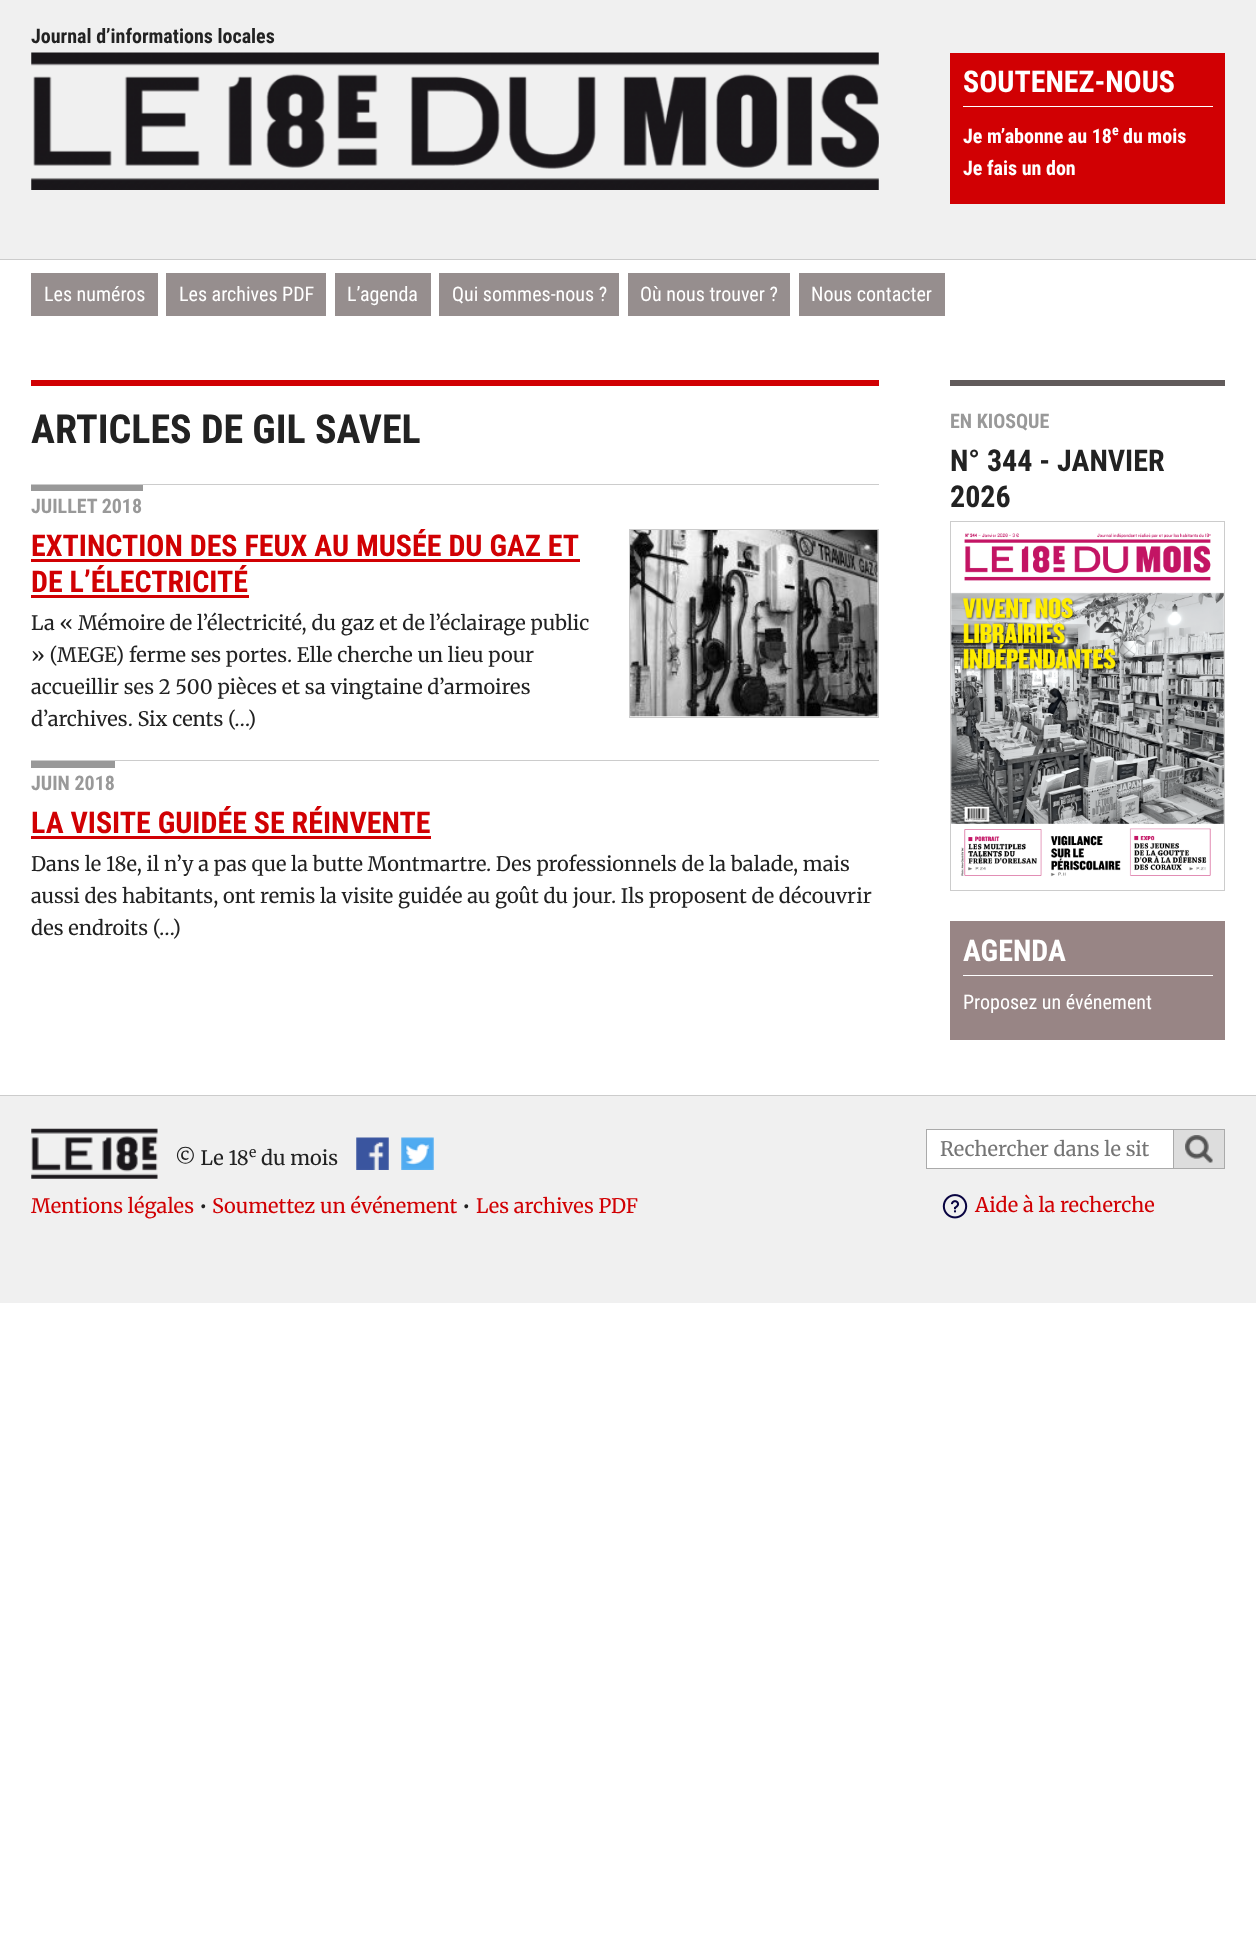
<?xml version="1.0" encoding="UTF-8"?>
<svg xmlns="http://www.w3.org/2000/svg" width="1256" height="1960">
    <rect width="100%" height="100%" fill="#FFFFFF"/>
    <rect x="0" y="0" width="1256" height="259" fill="#F0F0F0"/>
    <rect x="0" y="259" width="1256" height="1" fill="#CCCCCC"/>
    <text x="31" y="43" font-family="Roboto Condensed" font-size="20" font-weight="700" fill="#222222">Journal d’informations locales</text>
    <image x="31" y="52" width="848" height="138" href="img_01.png"/>
    <rect x="950" y="53" width="275" height="151" fill="#D10003"/>
    <rect x="963" y="106" width="250" height="1" fill="#FFFFFF"/>
    <text x="963" y="92" font-family="Roboto Condensed" font-size="30" font-weight="700" fill="#FFFFFF">SOUTENEZ-NOUS</text>
    <text x="963" y="143" font-family="Roboto Condensed" font-size="20" font-weight="700" fill="#FFFFFF">Je m’abonne au 18</text>
    <text x="1112" y="135" font-family="Roboto Condensed" font-size="14" font-weight="700" fill="#FFFFFF">e</text>
    <text x="1123" y="143" font-family="Roboto Condensed" font-size="20" font-weight="700" fill="#FFFFFF">du mois</text>
    <text x="963" y="175" font-family="Roboto Condensed" font-size="20" font-weight="700" fill="#FFFFFF">Je fais un don</text>
    <rect x="31" y="273" width="127" height="43" fill="#968E8E"/>
    <text x="44" y="301" font-family="Roboto Condensed" font-size="20" fill="#FFFFFF">Les numéros</text>
    <rect x="166" y="273" width="160" height="43" fill="#968E8E"/>
    <text x="179" y="301" font-family="Roboto Condensed" font-size="20" fill="#FFFFFF">Les archives PDF</text>
    <rect x="335" y="273" width="96" height="43" fill="#968E8E"/>
    <text x="347" y="301" font-family="Roboto Condensed" font-size="20" fill="#FFFFFF">L’agenda</text>
    <rect x="439" y="273" width="180" height="43" fill="#968E8E"/>
    <text x="452" y="301" font-family="Roboto Condensed" font-size="20" fill="#FFFFFF">Qui sommes-nous ?</text>
    <rect x="628" y="273" width="162" height="43" fill="#968E8E"/>
    <text x="640" y="301" font-family="Roboto Condensed" font-size="20" fill="#FFFFFF">Où nous trouver ?</text>
    <rect x="799" y="273" width="146" height="43" fill="#968E8E"/>
    <text x="811" y="301" font-family="Roboto Condensed" font-size="20" fill="#FFFFFF">Nous contacter</text>
    <rect x="31" y="380" width="848" height="6" fill="#D10003"/>
    <text x="31" y="443" font-family="Roboto Condensed" font-size="40" font-weight="700" fill="#222222">ARTICLES DE GIL SAVEL</text>
    <rect x="31" y="484" width="848" height="1" fill="#CCCCCC"/>
    <rect x="31" y="485" width="112" height="6" fill="#999999"/>
    <text x="31" y="513" font-family="Roboto Condensed" font-size="20" font-weight="700" fill="#999999">JUILLET 2018</text>
    <text x="31" y="556" font-family="Roboto Condensed" font-size="30" font-weight="700" fill="#D10003">EXTINCTION DES FEUX AU MUSÉE DU GAZ ET</text>
    <rect x="31" y="559" width="549" height="3" fill="#D10003"/>
    <rect x="629.5" y="529.5" width="249" height="188" fill="none" stroke="#CCCCCC"/>
    <image x="630" y="530" width="248" height="187" href="img_02.png"/>
    <text x="31" y="592" font-family="Roboto Condensed" font-size="30" font-weight="700" fill="#D10003">DE L’ÉLECTRICITÉ</text>
    <rect x="31" y="595" width="218" height="3" fill="#D10003"/>
    <text font-family="Merriweather" font-size="20" fill="#222222">
        <tspan x="31" y="630">La « Mémoire de l’électricité, du gaz et de l’éclairage public</tspan>
        <tspan x="31" y="662">» (MEGE) ferme ses portes. Elle cherche un lieu pour</tspan>
        <tspan x="31" y="694">accueillir ses 2 500 pièces et sa vingtaine d’armoires</tspan>
        <tspan x="31" y="726">d’archives. Six cents (…)</tspan>
    </text>
    <rect x="31" y="760" width="848" height="1" fill="#CCCCCC"/>
    <rect x="31" y="761" width="84" height="7" fill="#999999"/>
    <text x="31" y="790" font-family="Roboto Condensed" font-size="20" font-weight="700" fill="#999999">JUIN 2018</text>
    <text x="31" y="833" font-family="Roboto Condensed" font-size="30" font-weight="700" fill="#D10003">LA VISITE GUIDÉE SE RÉINVENTE</text>
    <rect x="31" y="836" width="400" height="3" fill="#D10003"/>
    <text font-family="Merriweather" font-size="20" fill="#222222">
        <tspan x="31" y="871">Dans le 18e, il n’y a pas que la butte Montmartre. Des professionnels de la balade, mais</tspan>
        <tspan x="31" y="903">aussi des habitants, ont remis la visite guidée au goût du jour. Ils proposent de découvrir</tspan>
        <tspan x="31" y="935">des endroits (…)</tspan>
    </text>
    <rect x="950" y="380" width="275" height="6" fill="#615B5B"/>
    <text x="950" y="428" font-family="Roboto Condensed" font-size="20" font-weight="700" fill="#999999">EN KIOSQUE</text>
    <text font-family="Roboto Condensed" font-size="30" font-weight="700" fill="#222222">
        <tspan x="950" y="471">N° 344 - JANVIER</tspan>
        <tspan x="950" y="507">2026</tspan>
    </text>
    <rect x="950.5" y="521.5" width="274" height="369" fill="none" stroke="#CCCCCC"/>
    <image x="951" y="533" width="273" height="344" href="img_03.png"/>
    <rect x="950" y="921" width="275" height="119" fill="#988585"/>
    <rect x="963" y="975" width="250" height="1" fill="#FFFFFF"/>
    <text x="963" y="961" font-family="Roboto Condensed" font-size="30" font-weight="700" fill="#FFFFFF">AGENDA</text>
    <text x="963" y="1009" font-family="Roboto Condensed" font-size="20" fill="#FFFFFF">Proposez un événement</text>
    <rect x="0" y="1096" width="1256" height="207" fill="#F0F0F0"/>
    <rect x="0" y="1095" width="1256" height="1" fill="#CCCCCC"/>
    <image x="31" y="1128" width="127" height="51" href="img_04.png"/>
    <text x="175" y="1165" font-family="Merriweather" font-size="20" fill="#222222">© Le 18</text>
    <text x="249" y="1157" font-family="Merriweather" font-size="14" fill="#222222">e</text>
    <text x="261" y="1165" font-family="Merriweather" font-size="20" fill="#222222">du mois</text>
    <image x="356" y="1137" width="33" height="33" href="img_05.png"/>
    <image x="401" y="1137" width="33" height="33" href="img_06.png"/>
    <text x="31" y="1213" font-family="Merriweather" font-size="20" fill="#D10003">Mentions légales</text>
    <text x="199" y="1213" font-family="Merriweather" font-size="20" fill="#222222">•</text>
    <text x="212" y="1213" font-family="Merriweather" font-size="20" fill="#D10003">Soumettez un événement</text>
    <text x="462" y="1213" font-family="Merriweather" font-size="20" fill="#222222">•</text>
    <text x="476" y="1213" font-family="Merriweather" font-size="20" fill="#D10003">Les archives PDF</text>
    <rect x="926.5" y="1129.5" width="247" height="39" fill="#FFFFFF" stroke="#AAAAAA"/>
    <text x="940" y="1156" font-family="Merriweather" font-size="20" fill="#757575">Rechercher dans le sit</text>
    <rect x="1174" y="1130" width="50" height="38" fill="#DDDDDD"/>
    <image x="1185" y="1135" width="28" height="28" href="img_07.png"/>
    <rect x="1174" y="1129" width="51" height="1" fill="#AAAAAA"/>
    <rect x="1224" y="1129" width="1" height="40" fill="#AAAAAA"/>
    <rect x="1174" y="1168" width="51" height="1" fill="#AAAAAA"/>
    <image x="942" y="1194" width="26" height="25" href="img_08.png"/>
    <text x="975" y="1212" font-family="Merriweather" font-size="20" fill="#D10003">Aide à la recherche</text>
</svg>
